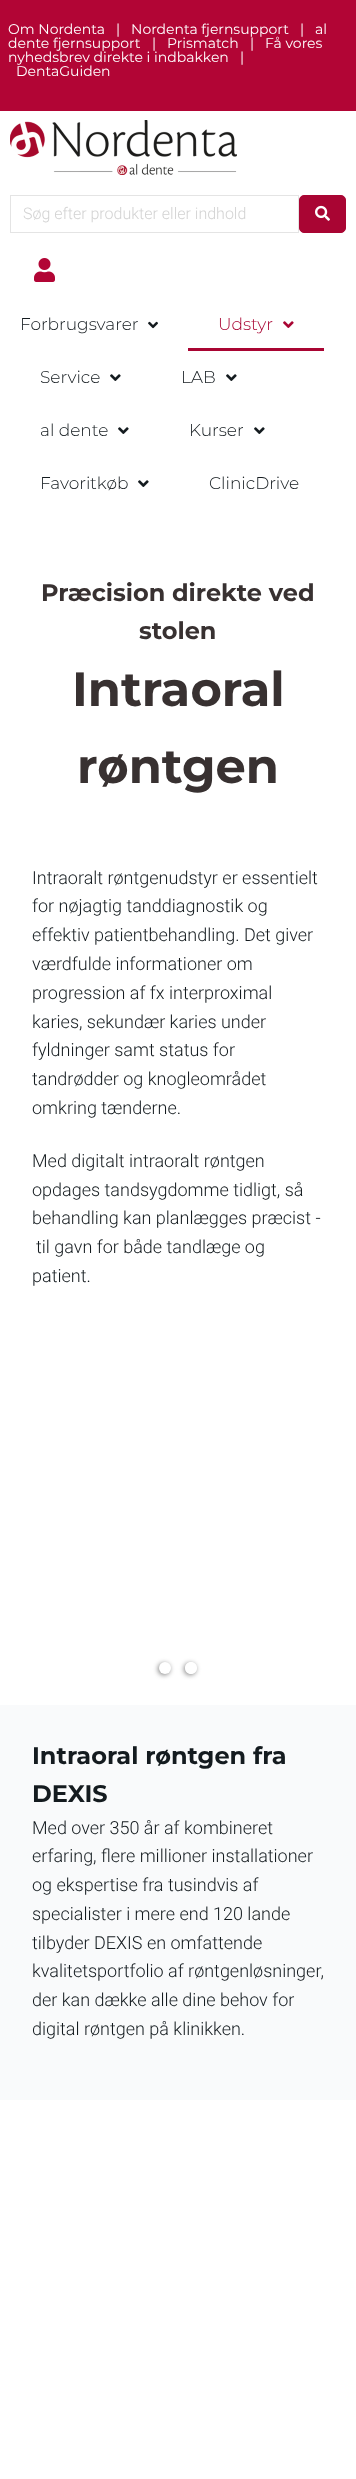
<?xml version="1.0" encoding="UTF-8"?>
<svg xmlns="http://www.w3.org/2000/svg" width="356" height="2479">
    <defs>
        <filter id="blur1" x="-50%" y="-200%" width="200%" height="500%"><feGaussianBlur stdDeviation="2.5"/></filter>
        <clipPath id="clip1"><path d="M 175 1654 H 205 V 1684 H 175 Z M 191 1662 C 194.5 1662 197 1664.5 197 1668 C 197 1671.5 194.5 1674 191 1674 C 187.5 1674 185 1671.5 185 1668 C 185 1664.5 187.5 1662 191 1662 Z" clip-rule="evenodd"/></clipPath>
    </defs>
    <rect width="100%" height="100%" fill="#FFFFFF"/>
    <rect x="0" y="0" width="356" height="111" fill="#B20535"/>
    <text x="8" y="34" font-family="Montserrat" font-size="14" fill="#FFFFFF">Om Nordenta</text>
    <text x="116" y="34" font-family="Montserrat" font-size="14" fill="#FFFFFF">|</text>
    <text x="131" y="34" font-family="Montserrat" font-size="14" fill="#FFFFFF">Nordenta fjernsupport</text>
    <text x="300" y="34" font-family="Montserrat" font-size="14" fill="#FFFFFF">|</text>
    <text x="315" y="34" font-family="Montserrat" font-size="14" fill="#FFFFFF">al</text>
    <text x="8" y="48" font-family="Montserrat" font-size="14" fill="#FFFFFF">dente fjernsupport</text>
    <text x="152" y="48" font-family="Montserrat" font-size="14" fill="#FFFFFF">|</text>
    <text x="167" y="48" font-family="Montserrat" font-size="14" fill="#FFFFFF">Prismatch</text>
    <text x="250" y="48" font-family="Montserrat" font-size="14" fill="#FFFFFF">|</text>
    <text x="265" y="48" font-family="Montserrat" font-size="14" fill="#FFFFFF">Få vores</text>
    <text x="8" y="62" font-family="Montserrat" font-size="14" fill="#FFFFFF">nyhedsbrev direkte i indbakken</text>
    <text x="240" y="62" font-family="Montserrat" font-size="14" fill="#FFFFFF">|</text>
    <text x="16" y="76" font-family="Montserrat" font-size="14" fill="#FFFFFF">DentaGuiden</text>
    <image x="10" y="120" width="227" height="55" href="img_01.png"/>
    <rect x="10.5" y="195.5" width="288" height="37" fill="none" stroke="#E4E4E4"/>
    <text x="23" y="219" font-family="Roboto" font-size="16" font-weight="300" fill="#D3D3D3">Søg efter produkter eller indhold</text>
    <rect x="299.5" y="195.5" width="46" height="37" rx="4.5" fill="#A90533" stroke="#A90533"/>
    <image x="315" y="205" width="15" height="16" href="img_02.png"/>
    <image x="34" y="258" width="21" height="24" href="img_03.png"/>
    <text x="20" y="330" font-family="Montserrat" font-size="17" font-weight="300" fill="#141B1F">Forbrugsvarer</text>
    <image x="148" y="321" width="10" height="8" href="img_04.png"/>
    <rect x="188" y="348" width="136" height="3" fill="#A90533"/>
    <text x="218" y="330" font-family="Montserrat" font-size="17" font-weight="300" fill="#A90533">Udstyr</text>
    <image x="283" y="321" width="11" height="7" href="img_05.png"/>
    <text x="40" y="383" font-family="Montserrat" font-size="17" font-weight="300" fill="#141B1F">Service</text>
    <image x="110" y="374" width="11" height="7" href="img_06.png"/>
    <text x="181" y="383" font-family="Montserrat" font-size="17" font-weight="300" fill="#141B1F">LAB</text>
    <image x="226" y="374" width="11" height="7" href="img_06.png"/>
    <text x="40" y="436" font-family="Montserrat" font-size="17" font-weight="300" fill="#141B1F">al dente</text>
    <image x="118" y="427" width="11" height="7" href="img_06.png"/>
    <text x="189" y="436" font-family="Montserrat" font-size="17" font-weight="300" fill="#141B1F">Kurser</text>
    <image x="254" y="427" width="11" height="7" href="img_06.png"/>
    <text x="40" y="489" font-family="Montserrat" font-size="17" font-weight="300" fill="#141B1F">Favoritkøb</text>
    <image x="138" y="480" width="11" height="7" href="img_06.png"/>
    <text x="209" y="489" font-family="Montserrat" font-size="17" font-weight="300" fill="#141B1F">ClinicDrive</text>
    <text x="41" y="601" font-family="Montserrat" font-size="24" font-weight="700" fill="#383131">Præcision direkte ved</text>
    <text x="139" y="639" font-family="Montserrat" font-size="24" font-weight="700" fill="#383131">stolen</text>
    <text x="72" y="706" font-family="Montserrat" font-size="48" font-weight="700" fill="#383131">Intraoral</text>
    <text x="77" y="783" font-family="Montserrat" font-size="48" font-weight="700" fill="#383131">røntgen</text>
    <text font-family="Roboto" font-size="18" font-weight="300" fill="#141B1F">
        <tspan x="32" y="884">Intraoralt røntgenudstyr er essentielt</tspan>
        <tspan x="32" y="912">for nøjagtig tanddiagnostik og</tspan>
        <tspan x="32" y="941">effektiv patientbehandling. Det giver</tspan>
        <tspan x="32" y="970">værdfulde informationer om</tspan>
        <tspan x="32" y="999">progression af fx interproximal</tspan>
        <tspan x="32" y="1028">karies, sekundær karies under</tspan>
        <tspan x="32" y="1056">fyldninger samt status for</tspan>
        <tspan x="32" y="1085">tandrødder og knogleområdet</tspan>
        <tspan x="32" y="1114">omkring tænderne.</tspan>
    </text>
    <text font-family="Roboto" font-size="18" font-weight="300" fill="#141B1F">
        <tspan x="32" y="1167">Med digitalt intraoralt røntgen</tspan>
        <tspan x="32" y="1196">opdages tandsygdomme tidligt, så</tspan>
        <tspan x="32" y="1224">behandling kan planlægges præcist -</tspan>
    </text>
    <text x="36" y="1253" font-family="Roboto" font-size="18" font-weight="300" fill="#141B1F">til gavn for både tandlæge og</text>
    <text x="32" y="1282" font-family="Roboto" font-size="18" font-weight="300" fill="#141B1F">patient.</text>
    <rect x="158" y="1663" width="12" height="12" rx="6" fill="#000000" fill-opacity="0.5" filter="url(#blur1)"/>
    <circle cx="165" cy="1668" r="6" fill="#FFFFFF"/>
    <g clip-path="url(#clip1)">
        <rect x="184" y="1663" width="12" height="12" rx="6" fill="#000000" fill-opacity="0.5" filter="url(#blur1)"/>
    </g>
    <circle cx="191" cy="1668" r="6" fill="#FFFFFF" fill-opacity="0.4"/>
    <rect x="0" y="1705" width="356" height="395" fill="#F9FAFB"/>
    <text font-family="Montserrat" font-size="24" font-weight="700" fill="#141B1F">
        <tspan x="32" y="1764">Intraoral røntgen fra</tspan>
        <tspan x="32" y="1802">DEXIS</tspan>
    </text>
    <text font-family="Roboto" font-size="18" font-weight="300" fill="#141B1F">
        <tspan x="32" y="1834">Med over 350 år af kombineret</tspan>
        <tspan x="32" y="1862">erfaring, flere millioner installationer</tspan>
        <tspan x="32" y="1891">og ekspertise fra tusindvis af</tspan>
        <tspan x="32" y="1920">specialister i mere end 120 lande</tspan>
        <tspan x="32" y="1949">tilbyder DEXIS en omfattende</tspan>
        <tspan x="32" y="1977">kvalitetsportfolio af røntgenløsninger,</tspan>
        <tspan x="32" y="2006">der kan dække alle dine behov for</tspan>
        <tspan x="32" y="2035">digital røntgen på klinikken.</tspan>
    </text>
</svg>
